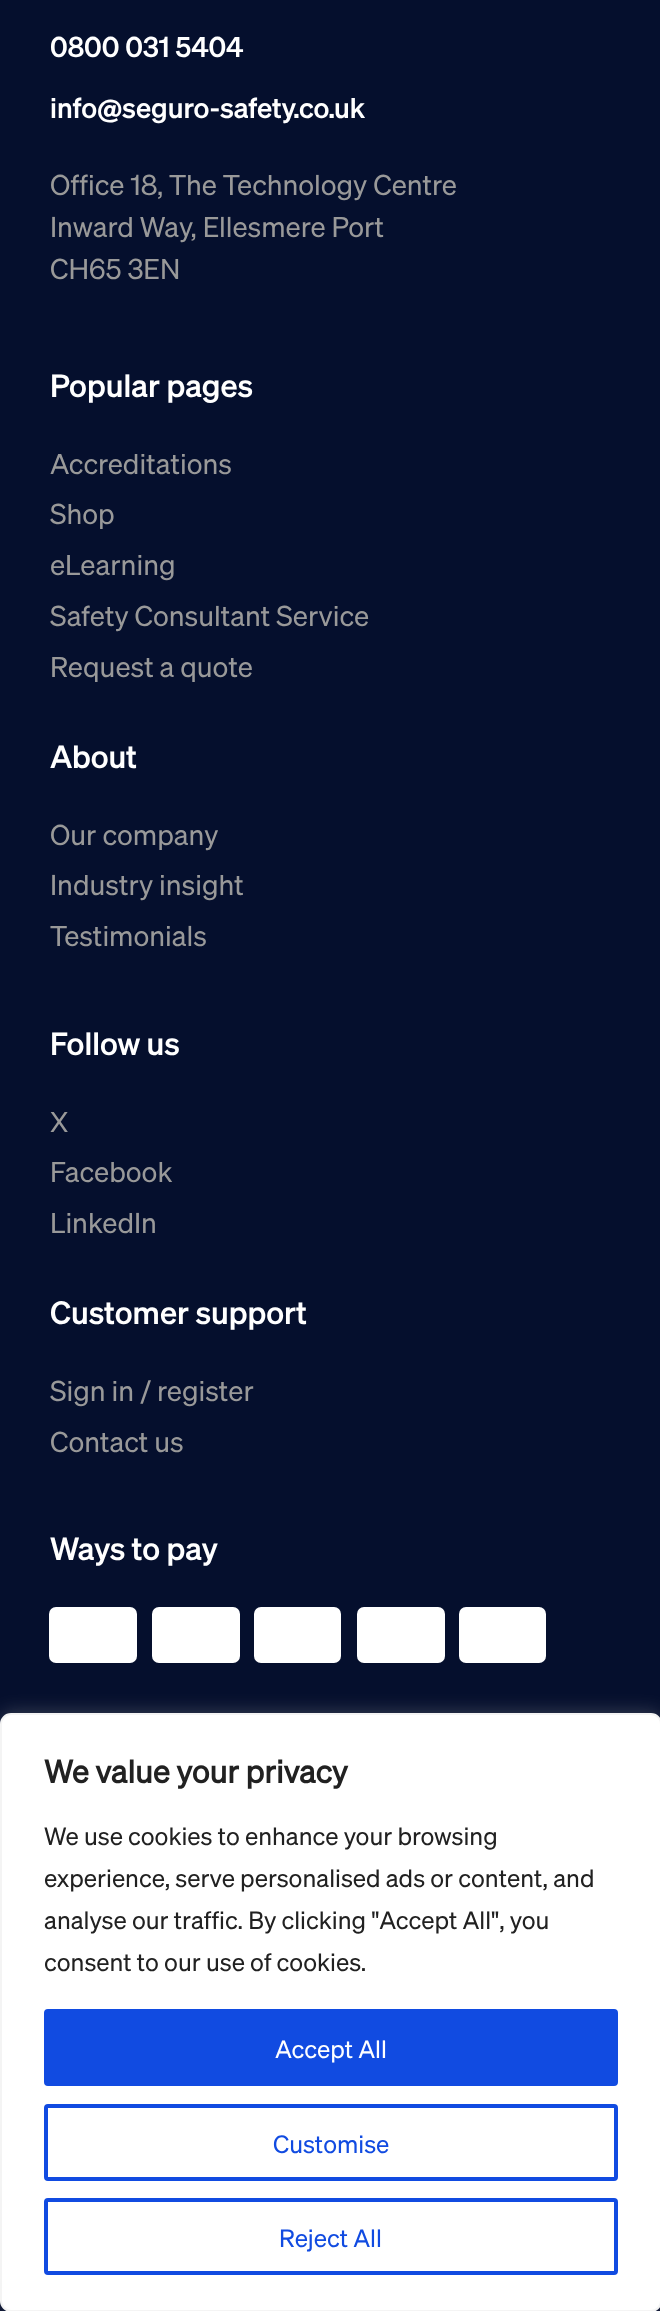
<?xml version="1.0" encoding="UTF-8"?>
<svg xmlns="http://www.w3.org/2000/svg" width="660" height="2311">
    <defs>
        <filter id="blur1" x="-50%" y="-200%" width="200%" height="500%"><feGaussianBlur stdDeviation="9"/></filter>
    </defs>
    <rect width="100%" height="100%" fill="#050F2D"/>
    <text x="50" y="57" font-family="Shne" font-size="28" font-weight="500" fill="#FFFFFF">0800 031 5404</text>
    <text x="50" y="118" font-family="Shne" font-size="28" font-weight="500" fill="#FFFFFF">info@seguro-safety.co.uk</text>
    <text font-family="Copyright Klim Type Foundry" font-size="28" fill="#999999">
        <tspan x="50" y="195">Office 18, The Technology Centre</tspan>
        <tspan x="50" y="237">Inward Way, Ellesmere Port</tspan>
        <tspan x="50" y="279">CH65 3EN</tspan>
    </text>
    <text x="50" y="397" font-family="Shne" font-size="31.5" font-weight="500" fill="#FFFFFF">Popular pages</text>
    <text font-family="Copyright Klim Type Foundry" font-size="28" fill="#999999">
        <tspan x="50" y="474">Accreditations</tspan>
        <tspan x="50" y="524">Shop</tspan>
        <tspan x="50" y="575">eLearning</tspan>
        <tspan x="50" y="626">Safety Consultant Service</tspan>
        <tspan x="50" y="677">Request a quote</tspan>
    </text>
    <text x="50" y="768" font-family="Shne" font-size="31.5" font-weight="500" fill="#FFFFFF">About</text>
    <text font-family="Copyright Klim Type Foundry" font-size="28" fill="#999999">
        <tspan x="50" y="845">Our company</tspan>
        <tspan x="50" y="895">Industry insight</tspan>
        <tspan x="50" y="946">Testimonials</tspan>
    </text>
    <text x="50" y="1055" font-family="Shne" font-size="31.5" font-weight="500" fill="#FFFFFF">Follow us</text>
    <text font-family="Copyright Klim Type Foundry" font-size="28" fill="#999999">
        <tspan x="50" y="1132">X</tspan>
        <tspan x="50" y="1182">Facebook</tspan>
        <tspan x="50" y="1233">LinkedIn</tspan>
    </text>
    <text x="50" y="1324" font-family="Shne" font-size="31.5" font-weight="500" fill="#FFFFFF">Customer support</text>
    <text font-family="Copyright Klim Type Foundry" font-size="28" fill="#999999">
        <tspan x="50" y="1401">Sign in / register</tspan>
        <tspan x="50" y="1452">Contact us</tspan>
    </text>
    <text x="50" y="1560" font-family="Shne" font-size="31.5" font-weight="500" fill="#FFFFFF">Ways to pay</text>
    <rect x="49" y="1607" width="88" height="56" rx="7" fill="#FFFFFF"/>
    <rect x="152" y="1607" width="88" height="56" rx="7" fill="#FFFFFF"/>
    <rect x="254" y="1607" width="87" height="56" rx="7" fill="#FFFFFF"/>
    <rect x="357" y="1607" width="88" height="56" rx="7" fill="#FFFFFF"/>
    <rect x="459" y="1607" width="87" height="56" rx="7" fill="#FFFFFF"/>
    <rect x="0" y="1712" width="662" height="598" rx="11" fill="#ACABAB" fill-opacity="0.3" filter="url(#blur1)"/>
    <rect x="1" y="1714" width="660" height="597" rx="10" fill="#FFFFFF" stroke="#F4F4F4" stroke-width="2"/>
    <text x="44" y="1783" font-family="Copyright Klim Type Foundry" font-size="31.5" font-weight="700" fill="#212121">We value your privacy</text>
    <text font-family="Copyright Klim Type Foundry" font-size="24.5" fill="#212121">
        <tspan x="44" y="1845">We use cookies to enhance your browsing</tspan>
        <tspan x="44" y="1887">experience, serve personalised ads or content, and</tspan>
        <tspan x="44" y="1929">analyse our traffic. By clicking "Accept All", you</tspan>
        <tspan x="44" y="1971">consent to our use of cookies.</tspan>
    </text>
    <rect x="46" y="2011" width="570" height="73" rx="2" fill="#114BE1" stroke="#114BE1" stroke-width="4"/>
    <text x="275" y="2058" font-family="Copyright Klim Type Foundry" font-size="24.5" fill="#FFFFFF">Accept All</text>
    <rect x="46" y="2106" width="570" height="73" rx="2" fill="none" stroke="#114BE1" stroke-width="4"/>
    <text x="273" y="2153" font-family="Copyright Klim Type Foundry" font-size="24.5" fill="#114BE1">Customise</text>
    <rect x="46" y="2200" width="570" height="73" rx="2" fill="none" stroke="#114BE1" stroke-width="4"/>
    <text x="279" y="2247" font-family="Copyright Klim Type Foundry" font-size="24.5" fill="#114BE1">Reject All</text>
</svg>
